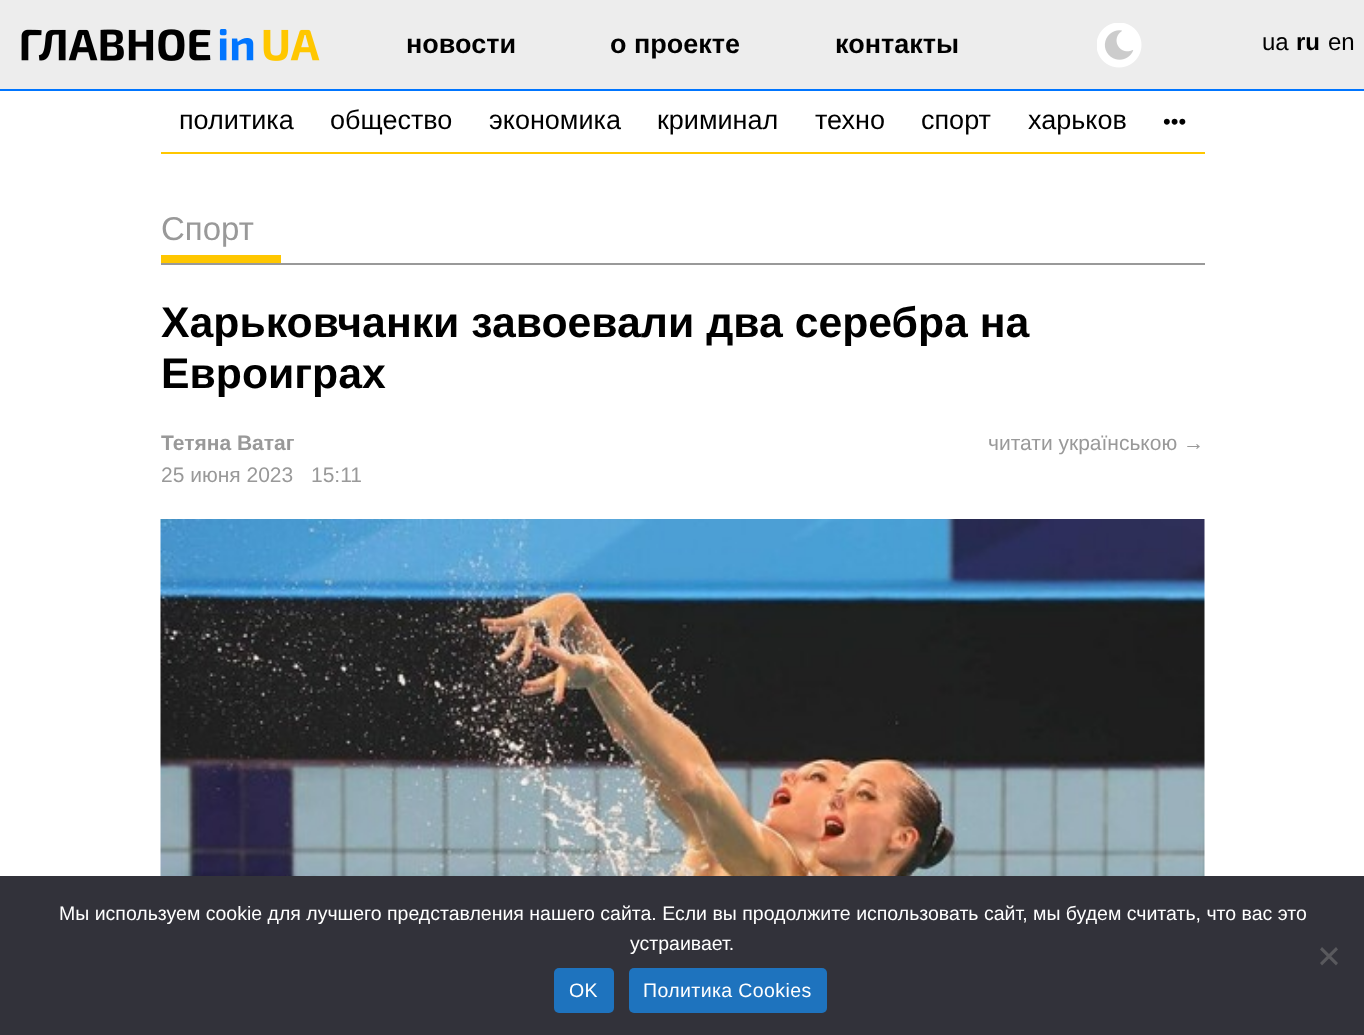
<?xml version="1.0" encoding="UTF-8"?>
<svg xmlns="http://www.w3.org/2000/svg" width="1364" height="1035">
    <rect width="100%" height="100%" fill="#FFFFFF"/>
    <rect x="0" y="0" width="1364" height="89" fill="#EDEDED"/>
    <rect x="0" y="89" width="1364" height="2" fill="#0075FF"/>
    <image x="21" y="29" width="299" height="32" href="img_01.png"/>
    <text x="406" y="53" font-family="Liberation Sans" font-size="27" font-weight="700" fill="#000000">новости</text>
    <text x="610" y="53" font-family="Liberation Sans" font-size="27" font-weight="700" fill="#000000">о проекте</text>
    <text x="835" y="53" font-family="Liberation Sans" font-size="27" font-weight="700" fill="#000000">контакты</text>
    <image x="1097" y="23" width="45" height="45" href="img_02.png"/>
    <text x="1262" y="50" font-family="Liberation Sans" font-size="24" fill="#000000">ua</text>
    <text x="1296" y="50" font-family="Liberation Sans" font-size="24" font-weight="700" fill="#000000">ru</text>
    <text x="1328" y="50" font-family="Liberation Sans" font-size="24" fill="#000000">en</text>
    <rect x="161" y="152" width="1044" height="2" fill="#FFC700"/>
    <text x="179" y="129" font-family="Liberation Sans" font-size="27" fill="#000000">политика</text>
    <text x="330" y="129" font-family="Liberation Sans" font-size="27" fill="#000000">общество</text>
    <text x="489" y="129" font-family="Liberation Sans" font-size="27" fill="#000000">экономика</text>
    <text x="657" y="129" font-family="Liberation Sans" font-size="27" fill="#000000">криминал</text>
    <text x="815" y="129" font-family="Liberation Sans" font-size="27" fill="#000000">техно</text>
    <text x="921" y="129" font-family="Liberation Sans" font-size="27" fill="#000000">спорт</text>
    <text x="1028" y="129" font-family="Liberation Sans" font-size="27" fill="#000000">харьков</text>
    <text x="1163" y="129" font-family="Liberation Sans" font-size="22" fill="#000000">•••</text>
    <rect x="161" y="263" width="1044" height="2" fill="#999999"/>
    <text x="161" y="240" font-family="Liberation Sans" font-size="33" fill="#999999">Спорт</text>
    <rect x="161" y="255" width="120" height="8" fill="#FFC700"/>
    <text font-family="Liberation Sans" font-size="42.75" font-weight="700" fill="#000000">
        <tspan x="161" y="337">Харьковчанки завоевали два серебра на</tspan>
        <tspan x="161" y="388">Евроиграх</tspan>
    </text>
    <text x="161" y="450" font-family="Liberation Sans" font-size="21" font-weight="700" fill="#999999">Тетяна Ватаг</text>
    <text x="161" y="482" font-family="Liberation Sans" font-size="21" fill="#999999">25 июня 2023</text>
    <text x="311" y="482" font-family="Liberation Sans" font-size="21" fill="#999999">15:11</text>
    <text x="988" y="450" font-family="Liberation Sans" font-size="21" fill="#999999">читати українською →</text>
    <image x="160" y="519" width="1045" height="357" href="img_03.png"/>
    <rect x="0" y="876" width="1364" height="159" fill="#32323A"/>
    <text x="59" y="920" font-family="Liberation Sans" font-size="19.5" fill="#FFFFFF">Мы используем cookie для лучшего представления нашего сайта. Если вы продолжите использовать сайт, мы будем считать, что вас это</text>
    <text x="630" y="950" font-family="Liberation Sans" font-size="19.5" fill="#FFFFFF">устраивает.</text>
    <path d="M 1336 947 L 1338 949.5 L 1322 965.5 L 1320 963 Z" fill="#59595D"/>
    <path d="M 1320 949.5 L 1322 947 L 1338 963 L 1336 965.5 Z" fill="#59595D"/>
    <rect x="554" y="968" width="60" height="45" rx="5" fill="#1E73BE"/>
    <text x="569" y="997" font-family="Liberation Sans" font-size="19.5" letter-spacing="0.4" fill="#FFFFFF">OK</text>
    <rect x="629" y="968" width="198" height="45" rx="5" fill="#1E73BE"/>
    <text x="643" y="997" font-family="Liberation Sans" font-size="19.5" letter-spacing="0.4" fill="#FFFFFF">Политика Cookies</text>
</svg>
